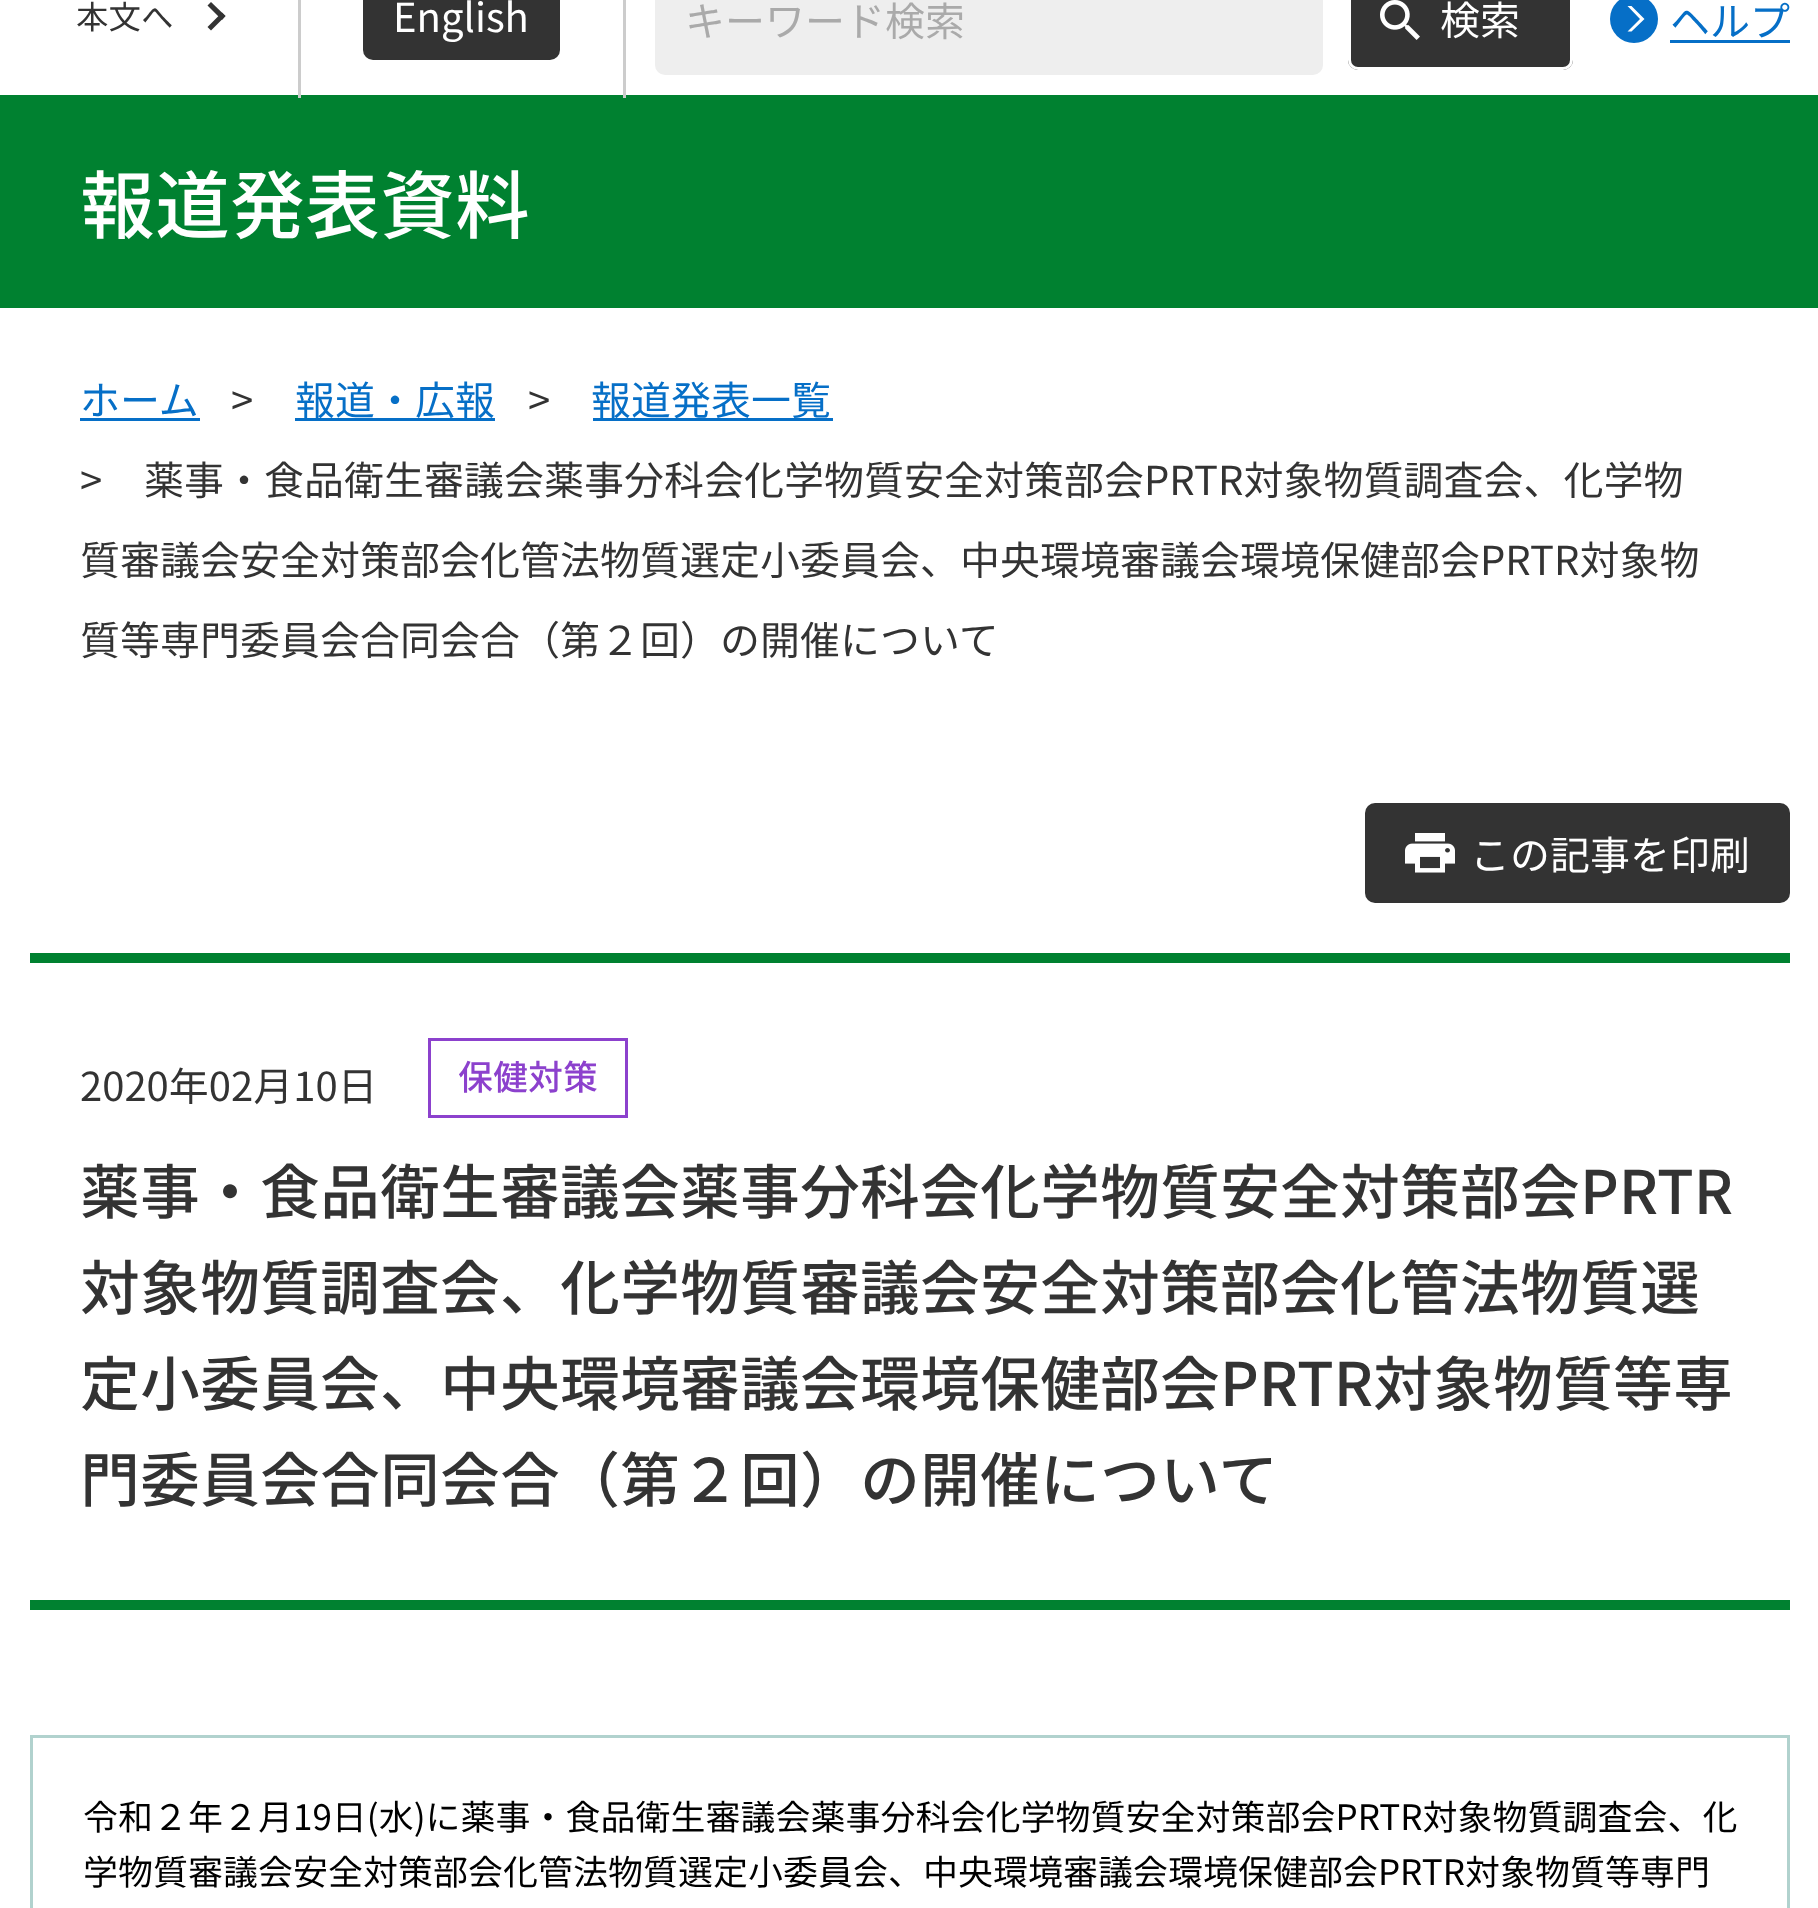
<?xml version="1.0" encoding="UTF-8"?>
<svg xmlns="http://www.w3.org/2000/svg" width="1818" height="1908">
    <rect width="100%" height="100%" fill="#FFFFFF"/>
    <rect x="0" y="95" width="1818" height="213" fill="#008130"/>
    <rect x="298" y="0" width="3" height="98" fill="#CCCCCC"/>
    <text x="76" y="29" font-family="Noto Sans CJK JP" font-size="32.5" fill="#333333">本文へ</text>
    <path d="M 211 2 L 225.5 16 L 222 20 L 207.5 5.5 Z" fill="#333333"/>
    <path d="M 222 12.5 L 225.5 16 L 211 30.5 L 207.5 27 Z" fill="#333333"/>
    <rect x="623" y="0" width="3" height="98" fill="#CCCCCC"/>
    <rect x="363" y="-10" width="197" height="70" rx="10" fill="#333333"/>
    <text x="393" y="32" font-family="Noto Sans CJK JP" font-size="40" fill="#FFFFFF">English</text>
    <rect x="655" y="-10" width="668" height="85" rx="10" fill="#EEEEEE"/>
    <text x="685" y="36" font-family="Noto Sans CJK JP" font-size="40" fill="#AAAAAA">キーワード検索</text>
    <rect x="1348" y="-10" width="225" height="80" rx="10" fill="#333333"/>
    <image x="1380" y="0" width="40" height="40" href="img_01.png"/>
    <rect x="1349.5" y="-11.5" width="222" height="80" rx="8.5" fill="none" stroke="#FFFFFF" stroke-width="3"/>
    <text x="1440" y="35" font-family="Noto Sans CJK JP" font-size="40" fill="#FFFFFF">検索</text>
    <circle cx="1634" cy="19" r="24" fill="#066FC7"/>
    <path d="M 1627.5 6 H 1631.5 L 1644.5 19 H 1640 Z M 1640 19 H 1644.5 L 1631.5 31.5 H 1627.5 Z" fill="#FFFFFF"/>
    <text x="1670" y="36" font-family="Noto Sans CJK JP" font-size="40" fill="#066FC7">ヘルプ</text>
    <rect x="1670" y="40" width="120" height="3" fill="#066FC7"/>
    <text x="80" y="233" font-family="Noto Sans CJK JP" font-size="75" font-weight="500" fill="#FFFFFF">報道発表資料</text>
    <text x="80" y="415" font-family="Noto Sans CJK JP" font-size="40" fill="#066FC7">ホーム</text>
    <rect x="80" y="418" width="120" height="3" fill="#066FC7"/>
    <text x="231" y="415" font-family="Noto Sans CJK JP" font-size="40" fill="#333333">&gt;</text>
    <rect x="295" y="418" width="200" height="3" fill="#066FC7"/>
    <text x="295" y="415" font-family="Noto Sans CJK JP" font-size="40" fill="#066FC7">報道・広報</text>
    <text x="528" y="415" font-family="Noto Sans CJK JP" font-size="40" fill="#333333">&gt;</text>
    <rect x="593" y="418" width="240" height="3" fill="#066FC7"/>
    <text x="591" y="415" font-family="Noto Sans CJK JP" font-size="40" fill="#066FC7">報道発表一覧</text>
    <text x="80" y="495" font-family="Noto Sans CJK JP" font-size="40" fill="#333333">&gt;</text>
    <text x="144" y="495" font-family="Noto Sans CJK JP" font-size="40" fill="#333333">薬事・食品衛生審議会薬事分科会化学物質安全対策部会PRTR対象物質調査会、化学物</text>
    <text x="80" y="575" font-family="Noto Sans CJK JP" font-size="40" fill="#333333">質審議会安全対策部会化管法物質選定小委員会、中央環境審議会環境保健部会PRTR対象物</text>
    <text x="80" y="655" font-family="Noto Sans CJK JP" font-size="40" fill="#333333">質等専門委員会合同会合（第２回）の開催について</text>
    <rect x="1365" y="803" width="425" height="100" rx="10" fill="#333333"/>
    <image x="1405" y="833" width="50" height="40" href="img_02.png"/>
    <text x="1470" y="870" font-family="Noto Sans CJK JP" font-size="40" fill="#FFFFFF">この記事を印刷</text>
    <rect x="30" y="953" width="1760" height="10" fill="#008130"/>
    <rect x="30" y="1600" width="1760" height="10" fill="#008130"/>
    <text x="80" y="1101" font-family="Noto Sans CJK JP" font-size="40" fill="#333333">2020年02月10日</text>
    <rect x="429.5" y="1039.5" width="197" height="77" fill="none" stroke="#8C41CD" stroke-width="3"/>
    <text x="458" y="1090" font-family="Noto Sans CJK JP" font-size="35" font-weight="500" fill="#8C41CD">保健対策</text>
    <text font-family="Noto Sans CJK JP" font-size="60" font-weight="500" fill="#333333">
        <tspan x="80" y="1214">薬事・食品衛生審議会薬事分科会化学物質安全対策部会PRTR</tspan>
        <tspan x="80" y="1310">対象物質調査会、化学物質審議会安全対策部会化管法物質選</tspan>
        <tspan x="80" y="1406">定小委員会、中央環境審議会環境保健部会PRTR対象物質等専</tspan>
        <tspan x="80" y="1502">門委員会合同会合（第２回）の開催について</tspan>
    </text>
    <rect x="31.5" y="1736.5" width="1757" height="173" fill="none" stroke="#B1D2CE" stroke-width="3"/>
    <text font-family="Noto Sans CJK JP" font-size="35" fill="#000000">
        <tspan x="83" y="1830">令和２年２月19日(水)に薬事・食品衛生審議会薬事分科会化学物質安全対策部会PRTR対象物質調査会、化</tspan>
        <tspan x="83" y="1885">学物質審議会安全対策部会化管法物質選定小委員会、中央環境審議会環境保健部会PRTR対象物質等専門</tspan>
    </text>
</svg>
